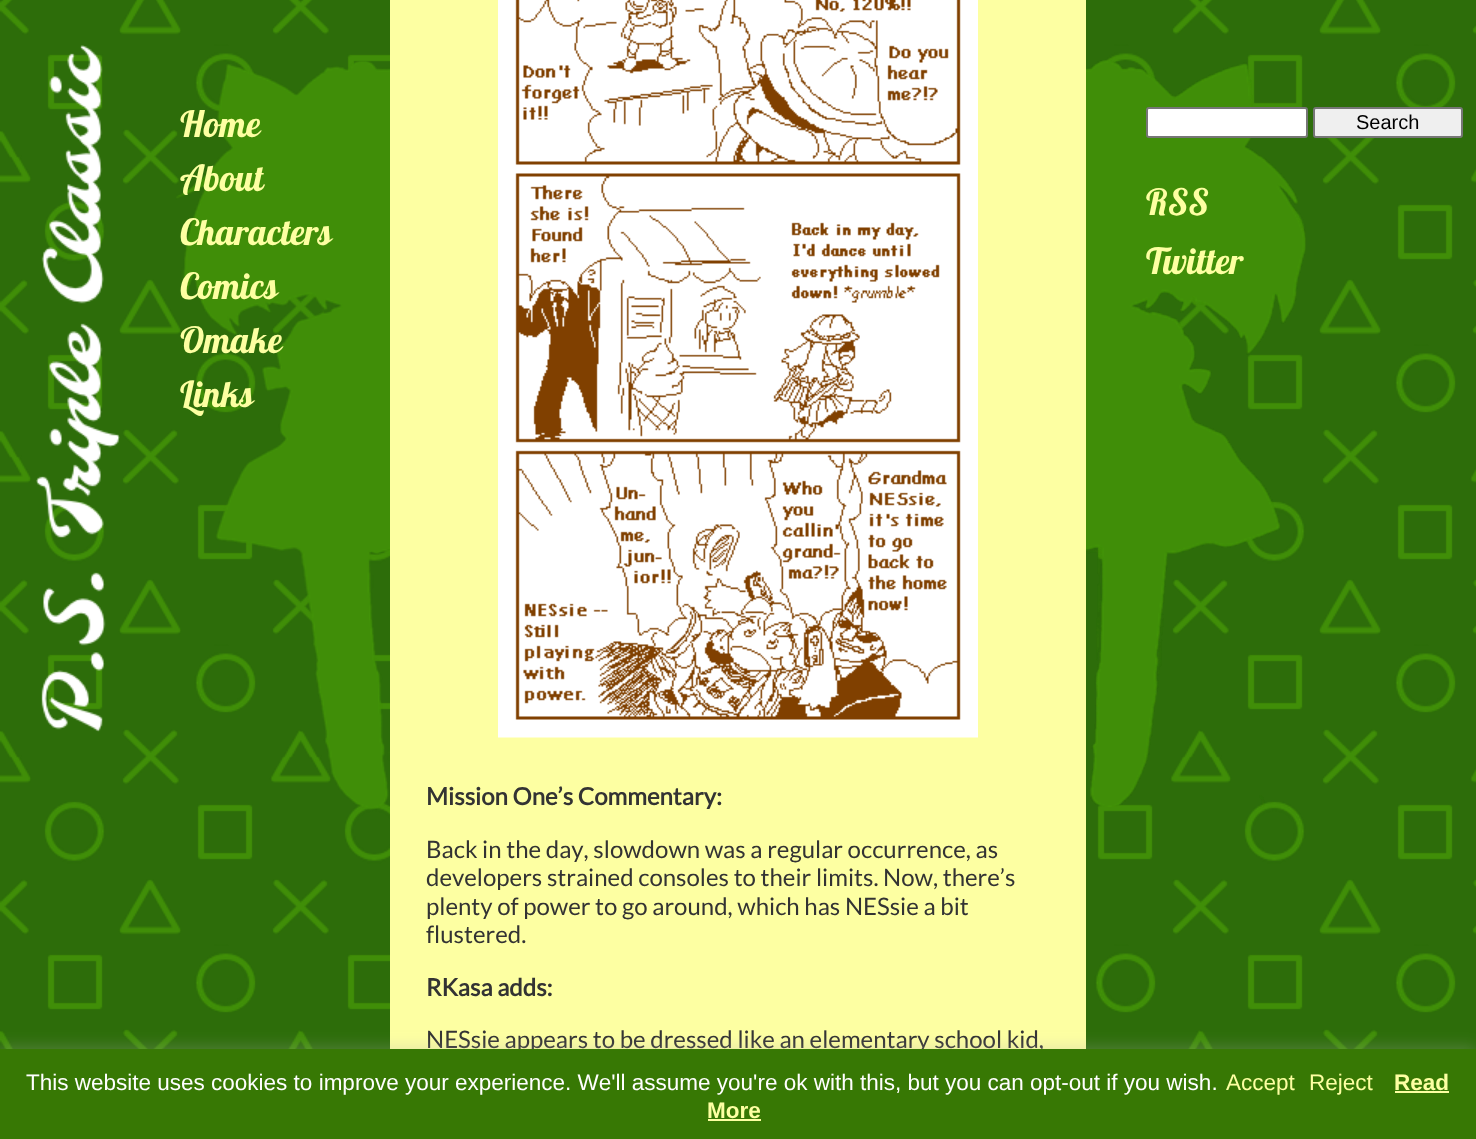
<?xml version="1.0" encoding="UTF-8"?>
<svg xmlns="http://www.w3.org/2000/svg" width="1476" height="1139">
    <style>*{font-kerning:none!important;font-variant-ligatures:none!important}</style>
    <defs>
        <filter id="blur1" x="-50%" y="-200%" width="200%" height="500%"><feGaussianBlur stdDeviation="7.5"/></filter>
    </defs>
    <rect width="100%" height="100%" fill="#2D6D0A"/>
    <image x="0" y="0" width="1476" height="1049" href="img_01.png"/>
    <image x="36" y="45" width="84" height="687" href="img_02.png"/>
    <image x="176" y="61" width="214" height="749" href="img_03.png"/>
    <text font-family="Lobster" font-size="36" fill="#FDFFA2">
        <tspan x="180" y="137">Home</tspan>
        <tspan x="180" y="191">About</tspan>
        <tspan x="180" y="245">Characters</tspan>
        <tspan x="180" y="299">Comics</tspan>
        <tspan x="180" y="353">Omake</tspan>
        <tspan x="180" y="407">Links</tspan>
    </text>
    <image x="1086" y="60" width="220" height="747" href="img_04.png"/>
    <image x="1086" y="60" width="220" height="745" href="img_05.png"/>
    <rect x="1147" y="108" width="160" height="29" rx="2" fill="#FFFFFF" stroke="#767676" stroke-width="2"/>
    <rect x="1314" y="108" width="148" height="29" rx="2" fill="#EFEFEF" stroke="#767676" stroke-width="2"/>
    <text x="1356" y="129" font-family="Liberation Sans" font-size="20" fill="#000000">Search</text>
    <text font-family="Lobster" font-size="36" fill="#FDFFA2">
        <tspan x="1146" y="215">RSS</tspan>
        <tspan x="1146" y="274">Twitter</tspan>
    </text>
    <rect x="390" y="0" width="696" height="1049" fill="#FDFFA2"/>
    <image x="498" y="0" width="480" height="738" href="img_06.png"/>
    <text x="426" y="805" font-family="Lato" font-size="24" font-weight="700" fill="#333333">Mission One’s Commentary:</text>
    <text font-family="Lato" font-size="24" fill="#333333">
        <tspan x="426" y="858">Back in the day, slowdown was a regular occurrence, as</tspan>
        <tspan x="426" y="886">developers strained consoles to their limits. Now, there’s</tspan>
        <tspan x="426" y="915">plenty of power to go around, which has NESsie a bit</tspan>
        <tspan x="426" y="943">flustered.</tspan>
    </text>
    <text x="426" y="996" font-family="Lato" font-size="24" font-weight="700" fill="#333333">RKasa adds:</text>
    <text x="426" y="1048" font-family="Lato" font-size="24" fill="#333333">NESsie appears to be dressed like an elementary school kid,</text>
    <rect x="0" y="1047" width="1476" height="92" fill="#ACABAB" fill-opacity="0.3" filter="url(#blur1)"/>
    <rect x="0" y="1049" width="1476" height="90" fill="#377804"/>
    <text x="26" y="1090" font-family="Liberation Sans" font-size="22.5" fill="#FFFFFF">This website uses cookies to improve your experience. We'll assume you're ok with this, but you can opt-out if you wish.</text>
    <text x="1226" y="1090" font-family="Liberation Sans" font-size="22.5" fill="#FDFFA2">Accept</text>
    <text x="1309" y="1090" font-family="Liberation Sans" font-size="22.5" fill="#FDFFA2">Reject</text>
    <text x="1394" y="1090" font-family="Liberation Sans" font-size="22.5" font-weight="700" fill="#FDFFA2">Read</text>
    <rect x="1395" y="1091" width="54" height="2" fill="#FDFFA2"/>
    <text x="707" y="1118" font-family="Liberation Sans" font-size="22.5" font-weight="700" fill="#FDFFA2">More</text>
    <rect x="708" y="1119" width="53" height="2" fill="#FDFFA2"/>
</svg>
